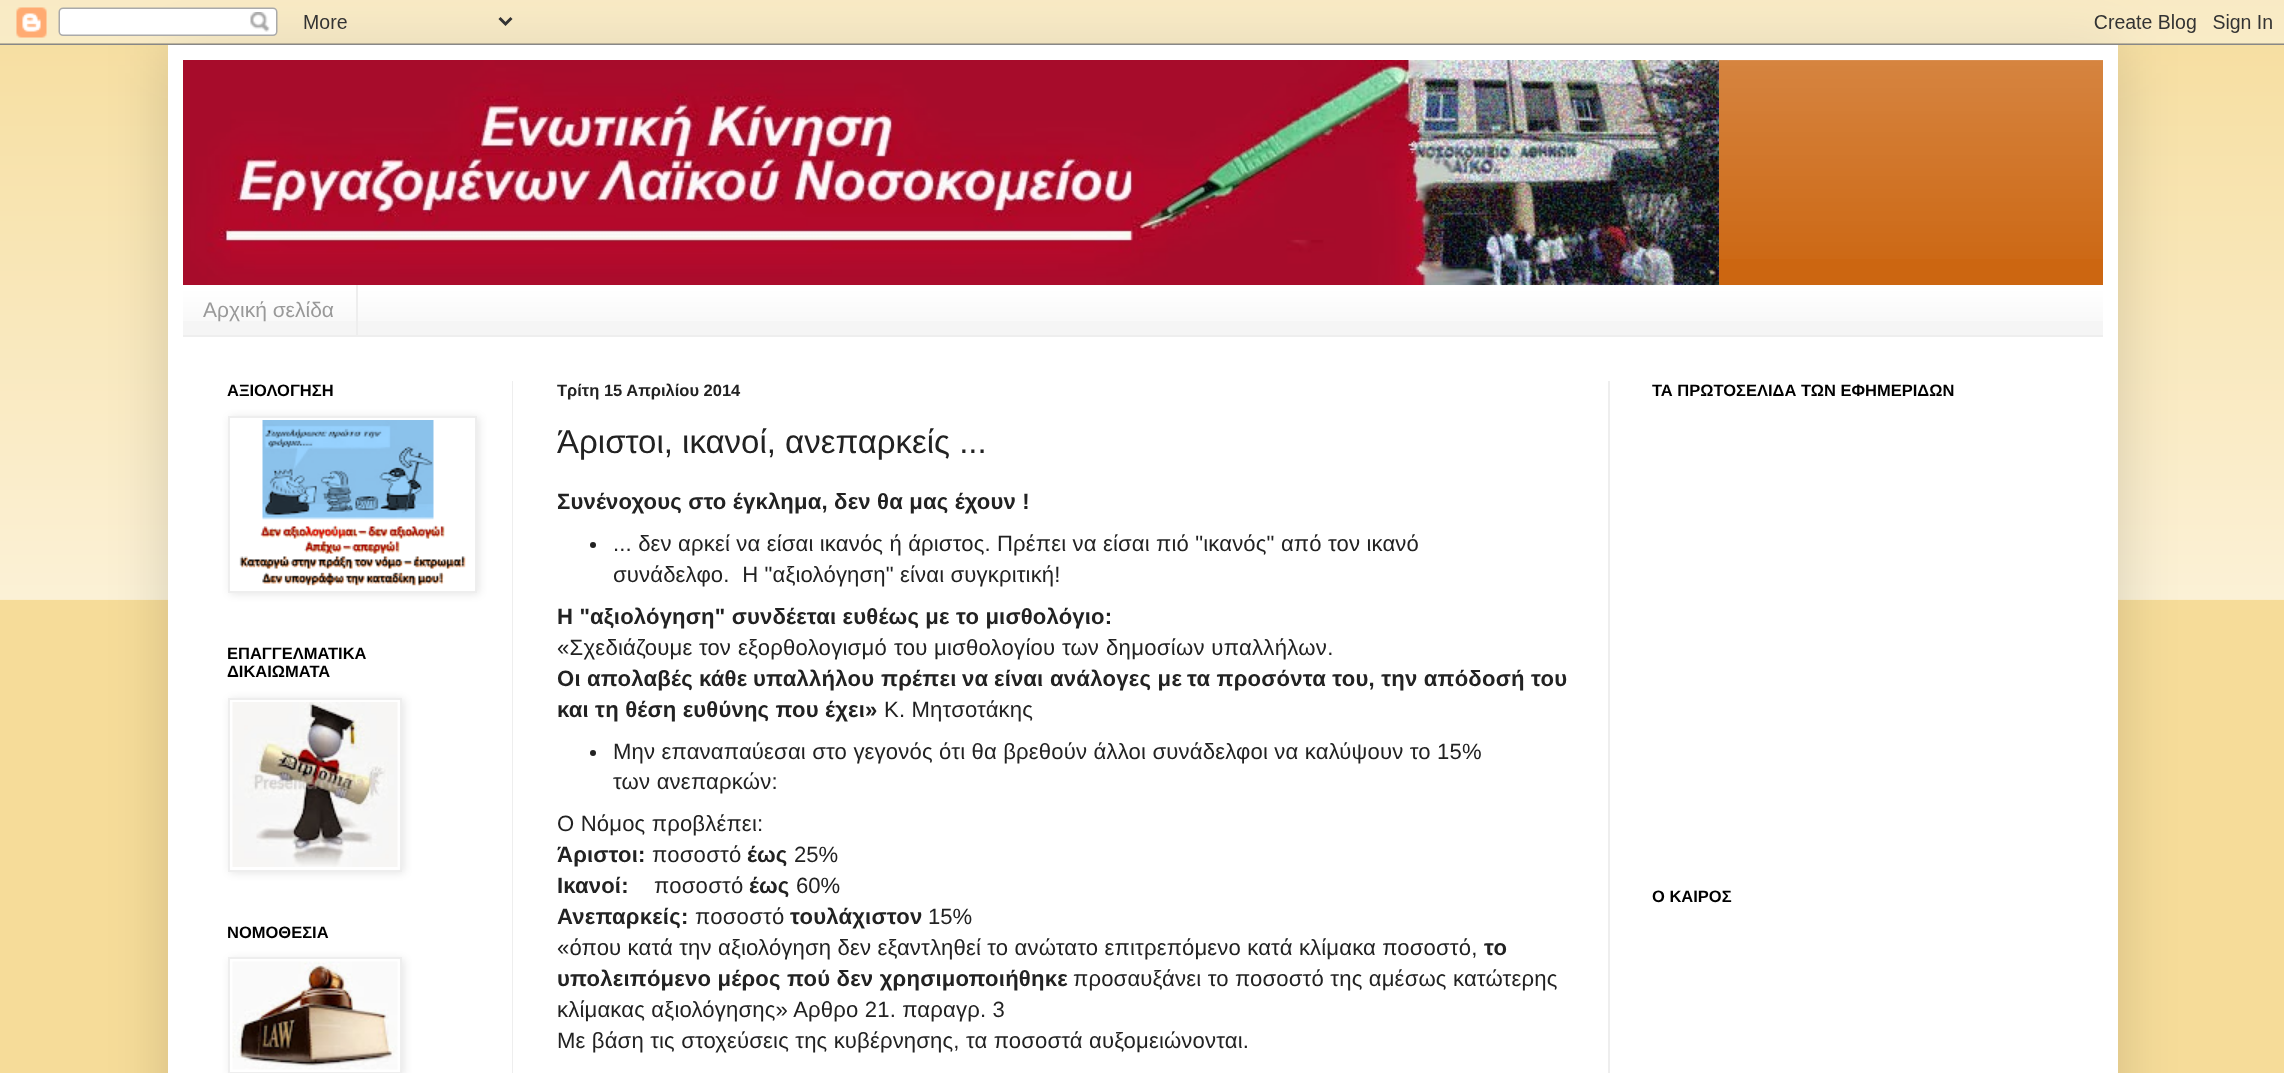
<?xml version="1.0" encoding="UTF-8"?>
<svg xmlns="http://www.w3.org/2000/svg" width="2284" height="1073">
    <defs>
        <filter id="blur1" x="-50%" y="-200%" width="200%" height="500%"><feGaussianBlur stdDeviation="30"/></filter>
        <filter id="blur2" x="-50%" y="-200%" width="200%" height="500%"><feGaussianBlur stdDeviation="4"/></filter>
        <clipPath id="clip1"><path d="M 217 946 H 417 V 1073 H 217 Z M 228 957 H 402 V 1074 H 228 Z" clip-rule="evenodd"/></clipPath>
    </defs>
    <rect width="100%" height="100%" fill="#F6DC99"/>
    <image x="0" y="0" width="2284" height="600" href="img_01.png"/>
    <rect x="168" y="45" width="1950" height="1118" fill="#000000" fill-opacity="0.15" filter="url(#blur1)"/>
    <image x="0" y="0" width="2284" height="45" href="img_02.png"/>
    <rect x="168" y="45" width="1950" height="1028" fill="#FFFFFF"/>
    <rect x="1719" y="60" width="384" height="225" fill="#CC6611"/>
    <image x="1719" y="60" width="384" height="199" href="img_03.png"/>
    <image x="183" y="60" width="1536" height="225" href="img_04.png"/>
    <rect x="183" y="285" width="1920" height="50" fill="#F5F5F5"/>
    <image x="183" y="285" width="1920" height="36" href="img_05.png"/>
    <rect x="183" y="335" width="1920" height="2" fill="#EEEEEE"/>
    <rect x="356" y="285" width="2" height="50" fill="#EEEEEE"/>
    <text x="203" y="317" font-family="Liberation Sans" font-size="21" fill="#999999">Αρχική σελίδα</text>
    <rect x="512" y="381" width="1" height="692" fill="#EEEEEE"/>
    <rect x="1608" y="381" width="2" height="692" fill="#EEEEEE"/>
    <text x="227" y="396" font-family="Liberation Sans" font-size="16.5" font-weight="700" fill="#000000">ΑΞΙΟΛΟΓΗΣΗ</text>
    <rect x="230" y="417" width="249" height="177" fill="#000000" fill-opacity="0.1" filter="url(#blur2)"/>
    <rect x="229" y="417" width="247" height="175" fill="#FFFFFF" stroke="#EEEEEE" stroke-width="2"/>
    <image x="239" y="420" width="227" height="166" href="img_06.png"/>
    <text font-family="Liberation Sans" font-size="16.5" font-weight="700" fill="#000000">
        <tspan x="227" y="659">ΕΠΑΓΓΕΛΜΑΤΙΚΑ</tspan>
        <tspan x="227" y="677">ΔΙΚΑΙΩΜΑΤΑ</tspan>
    </text>
    <rect x="230" y="699" width="174" height="174" fill="#000000" fill-opacity="0.1" filter="url(#blur2)"/>
    <rect x="229" y="699" width="172" height="172" fill="#FFFFFF" stroke="#EEEEEE" stroke-width="2"/>
    <image x="232" y="702" width="166" height="165" href="img_07.png"/>
    <text x="227" y="938" font-family="Liberation Sans" font-size="16.5" font-weight="700" fill="#000000">ΝΟΜΟΘΕΣΙΑ</text>
    <g clip-path="url(#clip1)">
        <rect x="230" y="959" width="174" height="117" fill="#000000" fill-opacity="0.1" filter="url(#blur2)"/>
    </g>
    <rect x="229" y="958" width="172" height="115" fill="none" stroke="#EEEEEE" stroke-width="2"/>
    <image x="232" y="961" width="166" height="109" href="img_08.png"/>
    <text x="557" y="396" font-family="Liberation Sans" font-size="16.5" font-weight="700" fill="#222222">Τρίτη 15 Απριλίου 2014</text>
    <text x="557" y="453" font-family="Liberation Sans" font-size="33" fill="#222222">Άριστοι, ικανοί, ανεπαρκείς ...</text>
    <text x="557" y="509" font-family="Liberation Sans" font-size="22.1" font-weight="700" letter-spacing="0.17" fill="#222222">Συνένοχους στο έγκλημα, δεν θα μας έχουν !</text>
    <circle cx="593" cy="545" r="3" fill="#222222"/>
    <text font-family="Liberation Sans" font-size="22.1" letter-spacing="0.15" fill="#222222" xml:space="preserve"><tspan x="613" y="551">... δεν αρκεί να είσαι ικανός ή άριστος. Πρέπει να είσαι πιό "ικανός" από τον ικανό</tspan><tspan x="613" y="582">συνάδελφο.  Η "αξιολόγηση" είναι συγκριτική!</tspan></text>
    <text x="557" y="624" font-family="Liberation Sans" font-size="22.1" font-weight="700" letter-spacing="0.17" fill="#222222">Η "αξιολόγηση" συνδέεται ευθέως με το μισθολόγιο:</text>
    <text x="557" y="655" font-family="Liberation Sans" font-size="22.1" letter-spacing="0.25" fill="#222222">«Σχεδιάζουμε</text>
    <text x="699" y="655" font-family="Liberation Sans" font-size="22.1" fill="#222222">τον</text>
    <text x="738" y="655" font-family="Liberation Sans" font-size="22.1" letter-spacing="0.25" fill="#222222">εξορθολογισμό</text>
    <text x="894" y="655" font-family="Liberation Sans" font-size="22.1" letter-spacing="0.25" fill="#222222">του μισθολογίου</text>
    <text x="1062" y="655" font-family="Liberation Sans" font-size="22.1" fill="#222222">των</text>
    <text x="1106" y="655" font-family="Liberation Sans" font-size="22.1" letter-spacing="0.3" fill="#222222">δημοσίων υπαλλήλων.</text>
    <text x="557" y="686" font-family="Liberation Sans" font-size="22.1" font-weight="700" letter-spacing="0.2" fill="#222222">Οι</text>
    <text x="587" y="686" font-family="Liberation Sans" font-size="22.1" font-weight="700" letter-spacing="0.25" fill="#222222">απολαβές</text>
    <text x="699" y="686" font-family="Liberation Sans" font-size="22.1" font-weight="700" letter-spacing="0.2" fill="#222222">κάθε</text>
    <text x="753" y="686" font-family="Liberation Sans" font-size="22.1" font-weight="700" letter-spacing="0.25" fill="#222222">υπαλλήλου</text>
    <text x="881" y="686" font-family="Liberation Sans" font-size="22.1" font-weight="700" letter-spacing="0.25" fill="#222222">πρέπει</text>
    <text x="962" y="686" font-family="Liberation Sans" font-size="22.1" font-weight="700" letter-spacing="0.25" fill="#222222">να</text>
    <text x="994" y="686" font-family="Liberation Sans" font-size="22.1" font-weight="700" letter-spacing="0.15" fill="#222222">είναι</text>
    <text x="1050" y="686" font-family="Liberation Sans" font-size="22.1" font-weight="700" letter-spacing="0.25" fill="#222222">ανάλογες με</text>
    <text x="1187" y="686" font-family="Liberation Sans" font-size="22.1" font-weight="700" letter-spacing="0.2" fill="#222222">τα προσόντα του, την απόδοσή του</text>
    <text x="557" y="717" font-family="Liberation Sans" font-size="22.1" font-weight="700" letter-spacing="0.17" fill="#222222">και τη θέση ευθύνης που έχει»</text>
    <text x="884" y="717" font-family="Liberation Sans" font-size="22.1" letter-spacing="0.17" fill="#222222">Κ. Μητσοτάκης</text>
    <circle cx="593" cy="753" r="3" fill="#222222"/>
    <text x="613" y="759" font-family="Liberation Sans" font-size="22.1" letter-spacing="0.17" fill="#222222">Μην επαναπαύεσαι στο γεγονός ότι θα βρεθούν άλλοι συνάδελφοι να καλύψουν το 15%</text>
    <text x="613" y="789" font-family="Liberation Sans" font-size="22.1" letter-spacing="0.2" fill="#222222">των ανεπαρκών:</text>
    <text x="557" y="831" font-family="Liberation Sans" font-size="22.1" letter-spacing="0.17" fill="#222222">Ο Νόμος προβλέπει:</text>
    <text x="557" y="862" font-family="Liberation Sans" font-size="22.1" font-weight="700" letter-spacing="0.17" fill="#222222">Άριστοι:</text>
    <text x="652" y="862" font-family="Liberation Sans" font-size="22.1" letter-spacing="0.25" fill="#222222">ποσοστό</text>
    <text x="747" y="862" font-family="Liberation Sans" font-size="22.1" font-weight="700" fill="#222222">έως</text>
    <text x="794" y="862" font-family="Liberation Sans" font-size="22.1" fill="#222222">25%</text>
    <text x="557" y="893" font-family="Liberation Sans" font-size="22.1" font-weight="700" letter-spacing="0.15" fill="#222222">Ικανοί:</text>
    <text x="654" y="893" font-family="Liberation Sans" font-size="22.1" letter-spacing="0.25" fill="#222222">ποσοστό</text>
    <text x="749" y="893" font-family="Liberation Sans" font-size="22.1" font-weight="700" fill="#222222">έως</text>
    <text x="796" y="893" font-family="Liberation Sans" font-size="22.1" fill="#222222">60%</text>
    <text x="557" y="924" font-family="Liberation Sans" font-size="22.1" font-weight="700" letter-spacing="0.2" fill="#222222">Ανεπαρκείς:</text>
    <text x="695" y="924" font-family="Liberation Sans" font-size="22.1" letter-spacing="0.25" fill="#222222">ποσοστό</text>
    <text x="790" y="924" font-family="Liberation Sans" font-size="22.1" font-weight="700" letter-spacing="0.2" fill="#222222">τουλάχιστον</text>
    <text x="928" y="924" font-family="Liberation Sans" font-size="22.1" fill="#222222">15%</text>
    <text x="557" y="955" font-family="Liberation Sans" font-size="22.1" letter-spacing="0.15" fill="#222222">«όπου κατά την αξιολόγηση δεν εξαντληθεί το ανώτατο επιτρεπόμενο κατά κλίμακα ποσοστό,</text>
    <text x="1484" y="955" font-family="Liberation Sans" font-size="22.1" font-weight="700" letter-spacing="0.2" fill="#222222">το</text>
    <text x="557" y="986" font-family="Liberation Sans" font-size="22.1" font-weight="700" letter-spacing="0.2" fill="#222222">υπολειπόμενο μέρος πού δεν χρησιμοποιήθηκε</text>
    <text x="1073" y="986" font-family="Liberation Sans" font-size="22.1" letter-spacing="0.17" fill="#222222">προσαυξάνει το ποσοστό της αμέσως κατώτερης</text>
    <text x="557" y="1017" font-family="Liberation Sans" font-size="22.1" letter-spacing="0.17" fill="#222222">κλίμακας αξιολόγησης» Αρθρο 21. παραγρ. 3</text>
    <text x="557" y="1048" font-family="Liberation Sans" font-size="22.1" letter-spacing="0.15" fill="#222222">Με βάση τις στοχεύσεις της κυβέρνησης, τα ποσοστά αυξομειώνονται.</text>
    <text x="1652" y="396" font-family="Liberation Sans" font-size="16.5" font-weight="700" fill="#000000">ΤΑ ΠΡΩΤΟΣΕΛΙΔΑ ΤΩΝ ΕΦΗΜΕΡΙΔΩΝ</text>
    <text x="1652" y="902" font-family="Liberation Sans" font-size="16.5" font-weight="700" fill="#000000">Ο ΚΑΙΡΟΣ</text>
</svg>
